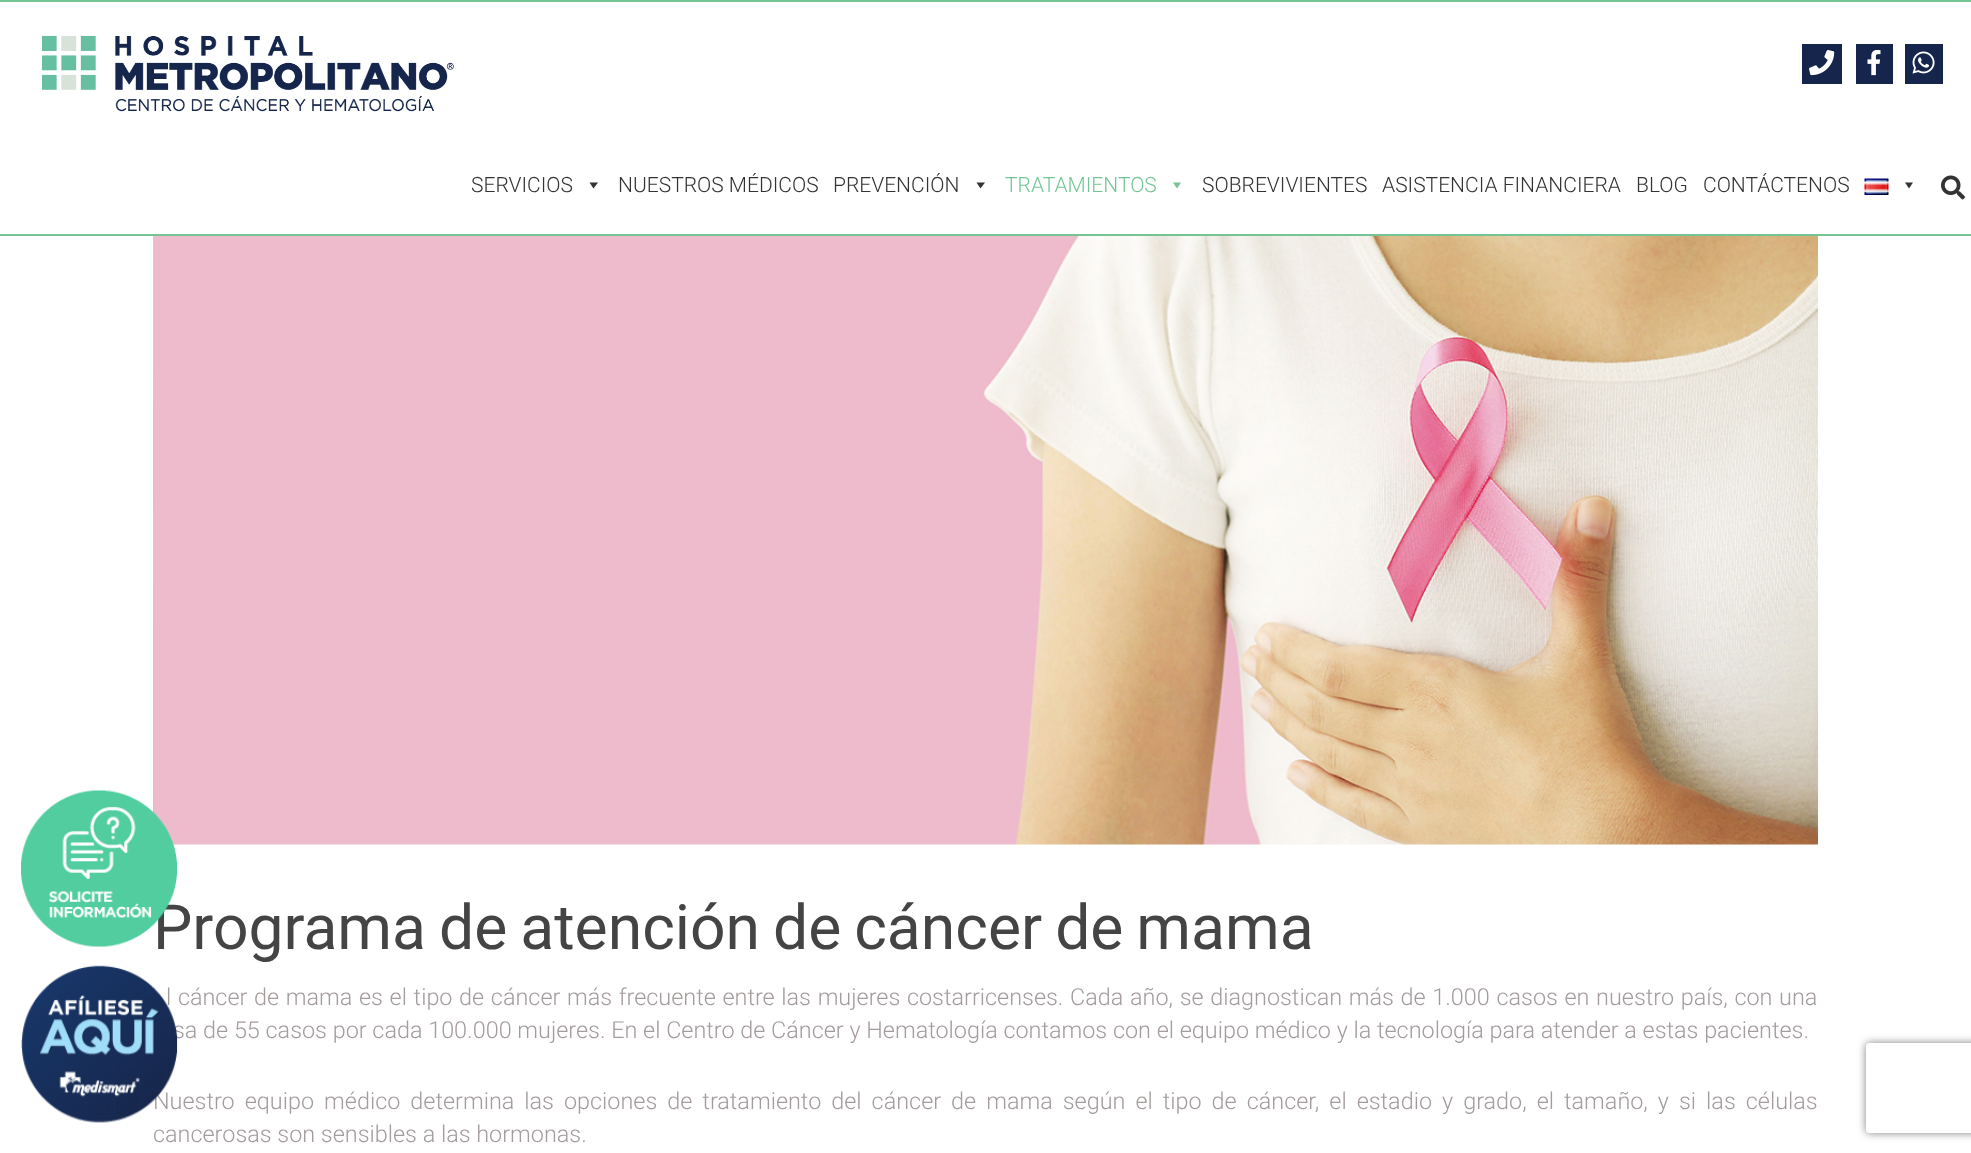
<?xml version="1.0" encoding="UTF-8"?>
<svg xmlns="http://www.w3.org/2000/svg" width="1971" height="1153">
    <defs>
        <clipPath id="clip1"><path d="M 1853 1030 H 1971 V 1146 H 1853 Z M 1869 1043 H 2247 C 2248.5 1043 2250 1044.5 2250 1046 V 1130 C 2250 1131.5 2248.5 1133 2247 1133 H 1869 C 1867.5 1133 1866 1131.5 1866 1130 V 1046 C 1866 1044.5 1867.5 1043 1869 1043 Z" clip-rule="evenodd"/></clipPath>
        <filter id="blur1" x="-50%" y="-200%" width="200%" height="500%"><feGaussianBlur stdDeviation="4"/></filter>
    </defs>
    <rect width="100%" height="100%" fill="#FFFFFF"/>
    <rect x="0" y="0" width="1971" height="2" fill="#75C594"/>
    <rect x="0" y="234" width="1971" height="2" fill="#75C594"/>
    <image x="41" y="35" width="413" height="77" href="img_01.png"/>
    <rect x="1802" y="44" width="40" height="40" fill="#15254C"/>
    <image x="1809" y="50" width="26" height="26" href="img_02.png"/>
    <rect x="1856" y="44" width="37" height="40" fill="#15254C"/>
    <image x="1867" y="49" width="14" height="27" href="img_03.png"/>
    <rect x="1905" y="44" width="38" height="40" fill="#15254C"/>
    <image x="1912" y="51" width="23" height="23" href="img_04.png"/>
    <text x="471" y="192" font-family="Roboto" font-size="21" font-weight="300" fill="#333333">SERVICIOS</text>
    <path d="M 598 182.5 L 593.5 188.5 L 589.5 182.5 Z" fill="#333333"/>
    <text x="618" y="192" font-family="Roboto" font-size="21" font-weight="300" fill="#333333">NUESTROS MÉDICOS</text>
    <text x="833" y="192" font-family="Roboto" font-size="21" font-weight="300" fill="#333333">PREVENCIÓN</text>
    <path d="M 985 182.5 L 980.5 188.5 L 976.5 182.5 Z" fill="#333333"/>
    <text x="1005" y="192" font-family="Roboto" font-size="21" font-weight="300" fill="#75C594">TRATAMIENTOS</text>
    <path d="M 1181 182.5 L 1177 188.5 L 1173 182.5 Z" fill="#75C594"/>
    <text x="1202" y="192" font-family="Roboto" font-size="21" font-weight="300" fill="#333333">SOBREVIVIENTES</text>
    <text x="1382" y="192" font-family="Roboto" font-size="21" font-weight="300" fill="#333333">ASISTENCIA FINANCIERA</text>
    <text x="1636" y="192" font-family="Roboto" font-size="21" font-weight="300" fill="#333333">BLOG</text>
    <text x="1703" y="192" font-family="Roboto" font-size="21" font-weight="300" fill="#333333">CONTÁCTENOS</text>
    <image x="1864" y="178" width="25" height="17" href="img_05.png"/>
    <path d="M 1913 182.5 L 1909 188.5 L 1905 182.5 Z" fill="#333333"/>
    <image x="1941" y="175" width="24" height="25" href="img_06.png"/>
    <image x="153" y="236" width="1665" height="609" href="img_09.png"/>
    <text x="153" y="949" word-spacing="-2.5" font-family="Roboto" font-size="62.4" fill="#444444">Programa de atención de cáncer de mama</text>
    <image x="21" y="790" width="157" height="157" href="img_07.png"/>
    <text x="166" y="1005" word-spacing="0.95" font-family="Roboto" font-size="23.4" font-weight="300" fill="#A49C9C">l cáncer de mama es el tipo de cáncer más frecuente entre las mujeres costarricenses. Cada año, se diagnostican más de 1.000 casos en nuestro país, con una</text>
    <text x="173" y="1038" font-family="Roboto" font-size="23.4" font-weight="300" fill="#A49C9C">sa de 55 casos por cada 100.000 mujeres. En el Centro de Cáncer y Hematología contamos con el equipo médico y la tecnología para atender a estas pacientes.</text>
    <text x="153" y="1109" word-spacing="4.3" font-family="Roboto" font-size="23.4" font-weight="300" fill="#A49C9C">Nuestro equipo médico determina las opciones de tratamiento del cáncer de mama según el tipo de cáncer, el estadio y grado, el tamaño, y si las células</text>
    <image x="21" y="965" width="157" height="158" href="img_08.png"/>
    <text x="153" y="1142" font-family="Roboto" font-size="23.4" font-weight="300" fill="#A49C9C">cancerosas son sensibles a las hormonas.</text>
    <g clip-path="url(#clip1)">
        <rect x="1866" y="1043" width="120" height="90" rx="3" fill="#808080" filter="url(#blur1)"/>
    </g>
</svg>
